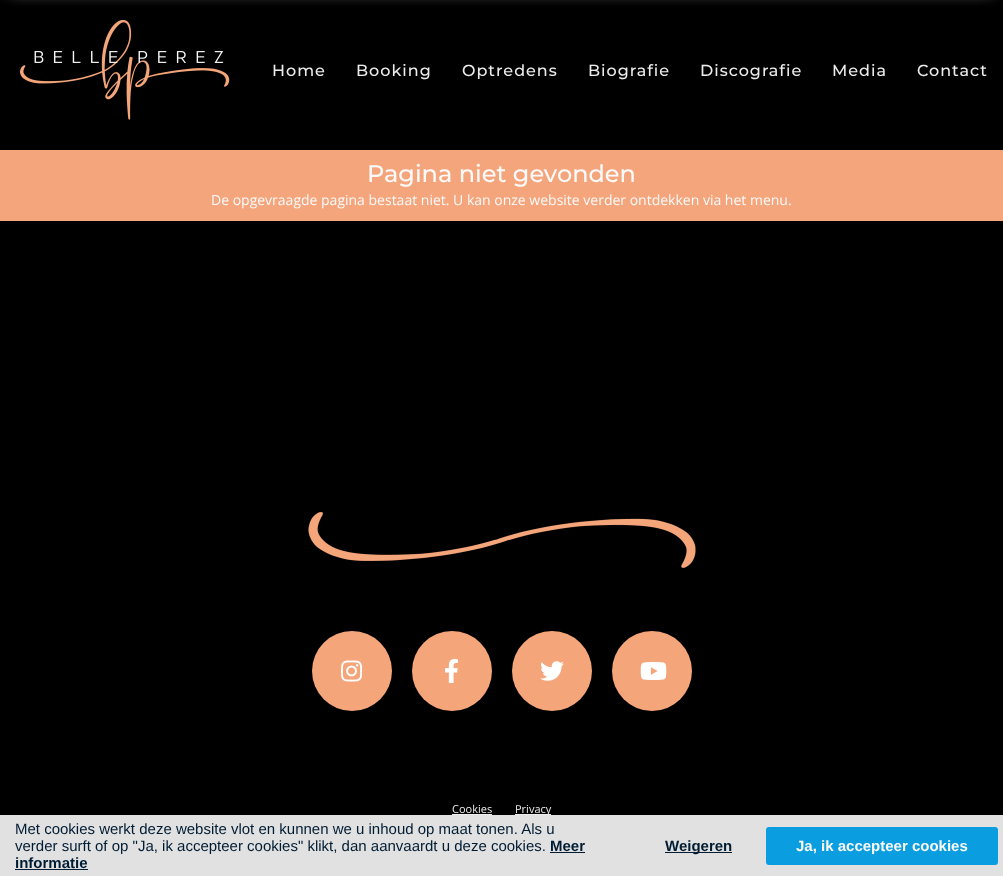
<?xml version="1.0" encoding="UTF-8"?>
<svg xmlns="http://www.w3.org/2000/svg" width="1003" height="876">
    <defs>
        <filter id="blur1" x="-50%" y="-200%" width="200%" height="500%"><feGaussianBlur stdDeviation="7.5"/></filter>
    </defs>
    <rect width="100%" height="100%" fill="#000000"/>
    <rect x="10" y="-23" width="983" height="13" fill="#ECECEC" filter="url(#blur1)"/>
    <image x="20" y="20" width="210" height="100" href="img_01.png"/>
    <text x="272" y="76" font-family="Montserrat" font-size="16" font-weight="100" letter-spacing="1" fill="#ECECEC">Home</text>
    <text x="356" y="76" font-family="Montserrat" font-size="16" font-weight="100" letter-spacing="1" fill="#ECECEC">Booking</text>
    <text x="462" y="76" font-family="Montserrat" font-size="16" font-weight="100" letter-spacing="1" fill="#ECECEC">Optredens</text>
    <text x="588" y="76" font-family="Montserrat" font-size="16" font-weight="100" letter-spacing="1" fill="#ECECEC">Biografie</text>
    <text x="700" y="76" font-family="Montserrat" font-size="16" font-weight="100" letter-spacing="1" fill="#ECECEC">Discografie</text>
    <text x="832" y="76" font-family="Montserrat" font-size="16" font-weight="100" letter-spacing="1" fill="#ECECEC">Media</text>
    <text x="917" y="76" font-family="Montserrat" font-size="16" font-weight="100" letter-spacing="1" fill="#ECECEC">Contact</text>
    <rect x="0" y="150" width="1003" height="71" fill="#F5A57B"/>
    <text x="367" y="182" font-family="Montserrat" font-size="24" font-weight="100" fill="#FAFAFA">Pagina niet gevonden</text>
    <text x="211" y="205" font-family="Open Sans" font-size="14" fill="#FAFAFA">De opgevraagde pagina bestaat niet. U kan onze website verder ontdekken via het menu.</text>
    <image x="308" y="512" width="388" height="56" href="img_02.png"/>
    <circle cx="352" cy="671" r="40" fill="#F5A57A"/>
    <image x="341" y="660" width="22" height="22" href="img_03.png"/>
    <circle cx="452" cy="671" r="40" fill="#F5A57A"/>
    <image x="445" y="659" width="13" height="24" href="img_04.png"/>
    <circle cx="552" cy="671" r="40" fill="#F5A57A"/>
    <image x="540" y="661" width="24" height="20" href="img_05.png"/>
    <circle cx="652" cy="671" r="40" fill="#F5A57A"/>
    <image x="640" y="662" width="27" height="18" href="img_06.png"/>
    <text x="452" y="813" font-family="Open Sans" font-size="11" fill="#ECECEC">Cookies</text>
    <rect x="452" y="814" width="40" height="1" fill="#ECECEC"/>
    <rect x="515" y="814" width="36" height="1" fill="#ECECEC"/>
    <text x="515" y="813" font-family="Open Sans" font-size="11" fill="#ECECEC">Privacy</text>
    <rect x="0" y="815" width="1003" height="61" fill="#E1E1E1"/>
    <text font-family="Liberation Sans" font-size="15" fill="#001C33">
        <tspan x="15" y="834">Met cookies werkt deze website vlot en kunnen we u inhoud op maat tonen. Als u</tspan>
        <tspan x="15" y="851">verder surft of op "Ja, ik accepteer cookies" klikt, dan aanvaardt u deze cookies.</tspan>
    </text>
    <text x="550" y="851" font-family="Liberation Sans" font-size="15" font-weight="700" fill="#001C33">Meer</text>
    <rect x="550" y="852" width="35" height="1" fill="#001C33"/>
    <text x="15" y="868" font-family="Liberation Sans" font-size="15" font-weight="700" fill="#001C33">informatie</text>
    <rect x="15" y="869" width="73" height="1" fill="#001C33"/>
    <rect x="665" y="852" width="67" height="1" fill="#001C33"/>
    <text x="665" y="851" font-family="Liberation Sans" font-size="15" font-weight="700" fill="#001C33">Weigeren</text>
    <rect x="766" y="827" width="232" height="38" rx="3" fill="#0A9DDF"/>
    <text x="796" y="851" font-family="Liberation Sans" font-size="15" font-weight="700" fill="#FAFAFA">Ja, ik accepteer cookies</text>
</svg>
